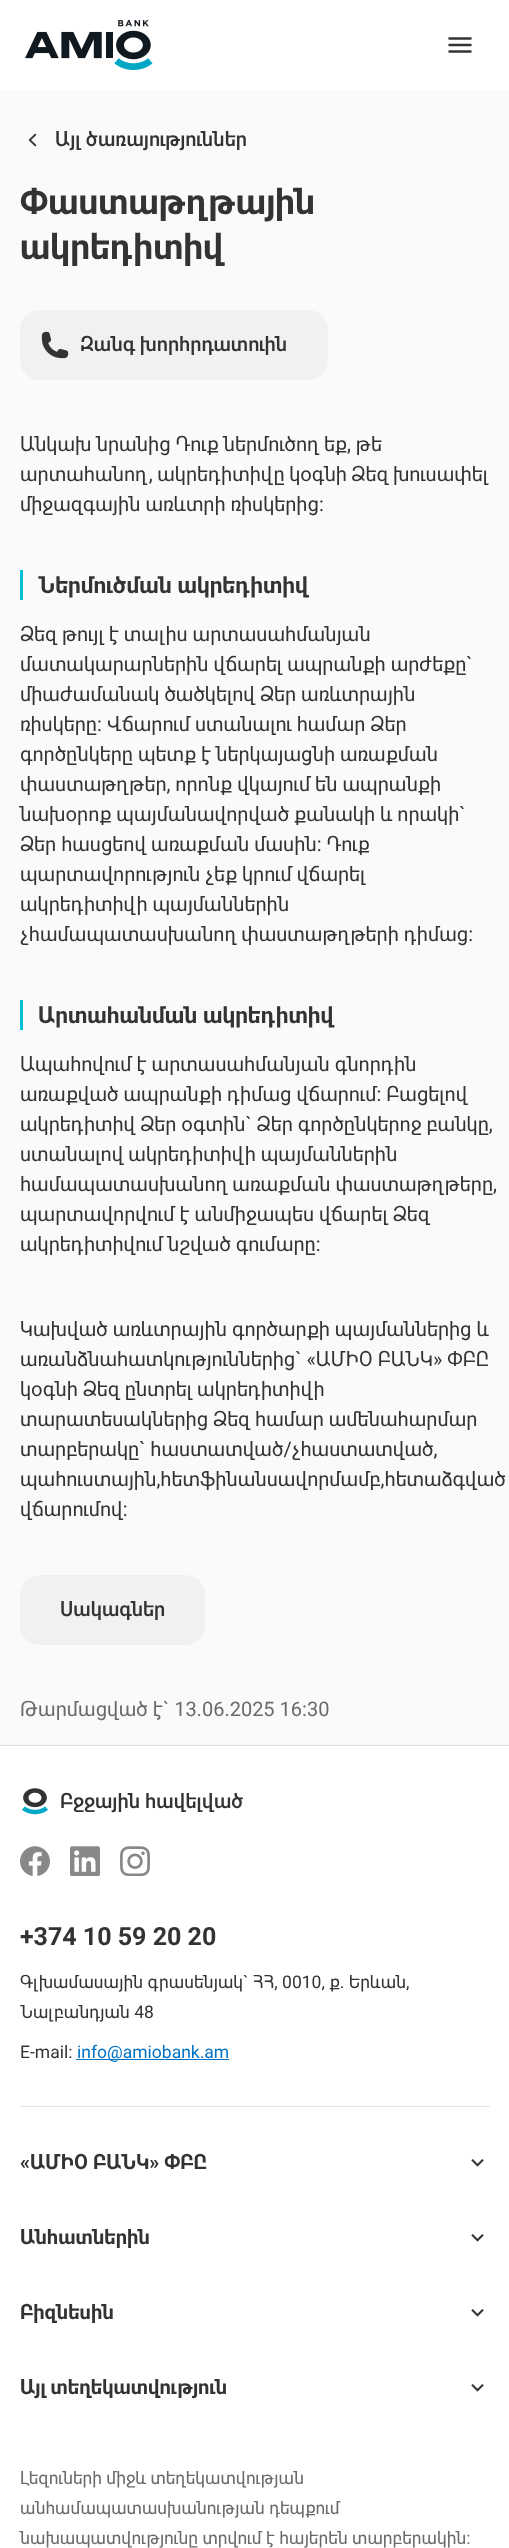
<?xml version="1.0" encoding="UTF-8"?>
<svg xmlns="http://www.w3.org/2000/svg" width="509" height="2548">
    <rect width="100%" height="100%" fill="#FFFFFF"/>
    <image x="25" y="20" width="128" height="50" href="img_01.png"/>
    <path d="M 449.5 38.5 H 470.5 M 449.5 45 H 470.5 M 449.5 51.5 H 470.5" fill="none" stroke="#333333" stroke-width="2.5" stroke-linecap="round" stroke-linejoin="round"/>
    <rect x="0" y="90" width="509" height="1655" fill="#FAFAFA"/>
    <image x="28" y="133" width="9" height="14" href="img_02.png"/>
    <text x="55" y="146" font-family="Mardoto" font-size="20" font-weight="500" fill="#333333">Այլ ծառայություններ</text>
    <text font-family="Mardoto" font-size="35" font-weight="700" fill="#333333">
        <tspan x="20" y="214">Փաստաթղթային</tspan>
        <tspan x="20" y="259">ակրեդիտիվ</tspan>
    </text>
    <rect x="20" y="310" width="308" height="70" rx="20" fill="#F2F0F0"/>
    <image x="41" y="331" width="28" height="28" href="img_03.png"/>
    <text x="80" y="351" font-family="Mardoto" font-size="20" font-weight="500" fill="#333333">Զանգ խորհրդատուին</text>
    <text font-family="Mardoto" font-size="20" fill="#333333">
        <tspan x="20" y="451">Անկախ նրանից Դուք ներմուծող եք, թե</tspan>
        <tspan x="20" y="481" word-spacing="-0.5">արտահանող, ակրեդիտիվը կօգնի Ձեզ խուսափել</tspan>
        <tspan x="20" y="511">միջազգային առևտրի ռիսկերից:</tspan>
    </text>
    <rect x="20" y="570" width="3" height="30" fill="#00C1D8"/>
    <text x="38" y="593" font-family="Mardoto" font-size="22.5" font-weight="700" fill="#333333">Ներմուծման ակրեդիտիվ</text>
    <text font-family="Mardoto" font-size="20" fill="#333333">
        <tspan x="20" y="641">Ձեզ թույլ է տալիս արտասահմանյան</tspan>
        <tspan x="20" y="671">մատակարարներին վճարել ապրանքի արժեքը`</tspan>
        <tspan x="20" y="701">միաժամանակ ծածկելով Ձեր առևտրային</tspan>
        <tspan x="20" y="731">ռիսկերը: Վճարում ստանալու համար Ձեր</tspan>
        <tspan x="20" y="761">գործընկերը պետք է ներկայացնի առաքման</tspan>
        <tspan x="20" y="791">փաստաթղթեր, որոնք վկայում են ապրանքի</tspan>
        <tspan x="20" y="821">նախօրոք պայմանավորված քանակի և որակի`</tspan>
        <tspan x="20" y="851">Ձեր հասցեով առաքման մասին: Դուք</tspan>
        <tspan x="20" y="881">պարտավորություն չեք կրում վճարել</tspan>
        <tspan x="20" y="911">ակրեդիտիվի պայմաններին</tspan>
        <tspan x="20" y="941">չհամապատասխանող փաստաթղթերի դիմաց:</tspan>
    </text>
    <rect x="20" y="1000" width="3" height="30" fill="#00C1D8"/>
    <text x="38" y="1023" font-family="Mardoto" font-size="22.5" font-weight="700" fill="#333333">Արտահանման ակրեդիտիվ</text>
    <text font-family="Mardoto" font-size="20" fill="#333333">
        <tspan x="20" y="1071">Ապահովում է արտասահմանյան գնորդին</tspan>
        <tspan x="20" y="1101">առաքված ապրանքի դիմաց վճարում: Բացելով</tspan>
        <tspan x="20" y="1131">ակրեդիտիվ Ձեր օգտին` Ձեր գործընկերոջ բանկը,</tspan>
        <tspan x="20" y="1161">ստանալով ակրեդիտիվի պայմաններին</tspan>
        <tspan x="20" y="1191">համապատասխանող առաքման փաստաթղթերը,</tspan>
        <tspan x="20" y="1221">պարտավորվում է անմիջապես վճարել Ձեզ</tspan>
        <tspan x="20" y="1251">ակրեդիտիվում նշված գումարը:</tspan>
    </text>
    <text font-family="Mardoto" font-size="20" fill="#333333">
        <tspan x="20" y="1336">Կախված առևտրային գործարքի պայմաններից և</tspan>
        <tspan x="20" y="1366">առանձնահատկություններից` «ԱՄԻՕ ԲԱՆԿ» ՓԲԸ</tspan>
        <tspan x="20" y="1396">կօգնի Ձեզ ընտրել ակրեդիտիվի</tspan>
        <tspan x="20" y="1426">տարատեսակներից Ձեզ համար ամենահարմար</tspan>
        <tspan x="20" y="1456">տարբերակը` հաստատված/չհաստատված,</tspan>
        <tspan x="20" y="1486">պահուստային,հետֆինանսավորմամբ,հետաձգված</tspan>
        <tspan x="20" y="1516">վճարումով:</tspan>
    </text>
    <rect x="20" y="1575" width="185" height="70" rx="20" fill="#F2F0F0"/>
    <text x="60" y="1616" font-family="Mardoto" font-size="20" font-weight="500" fill="#333333">Սակագներ</text>
    <text x="20" y="1716" font-family="Mardoto" font-size="20" fill="#6A6A6A">Թարմացված է</text>
    <text x="163" y="1716" font-family="Roboto" font-size="20" fill="#6A6A6A">` 13.06.2025 16:30</text>
    <rect x="0" y="1745" width="509" height="1" fill="#E1E1E1"/>
    <image x="22" y="1788" width="26" height="27" href="img_04.png"/>
    <text x="60" y="1808" font-family="Mardoto" font-size="20" font-weight="500" fill="#333333">Բջջային հավելված</text>
    <image x="20" y="1846" width="30" height="30" href="img_05.png"/>
    <image x="70" y="1846" width="30" height="30" href="img_06.png"/>
    <image x="120" y="1846" width="30" height="30" href="img_07.png"/>
    <text x="20" y="1945" font-family="Roboto" font-size="25" font-weight="700" fill="#333333">+374 10 59 20 20</text>
    <text font-family="Mardoto" font-size="17.5" fill="#333333">
        <tspan x="20" y="1988">Գլխամասային գրասենյակ` ՀՀ, 0010, ք. Երևան,</tspan>
        <tspan x="20" y="2018">Նալբանդյան 48</tspan>
    </text>
    <text x="20" y="2058" font-family="Roboto" font-size="17.5" fill="#333333">E-mail:</text>
    <rect x="76" y="2059" width="153" height="1" fill="#0072C6"/>
    <text x="77" y="2058" font-family="Roboto" font-size="17.5" fill="#0072C6">info@amiobank.am</text>
    <rect x="20" y="2106" width="470" height="1" fill="#E1E1E1"/>
    <text x="20" y="2169" font-family="Mardoto" font-size="20" font-weight="700" fill="#333333">«ԱՄԻՕ ԲԱՆԿ» ՓԲԸ</text>
    <image x="471" y="2159" width="13" height="8" href="img_08.png"/>
    <text x="20" y="2244" font-family="Mardoto" font-size="20" font-weight="700" fill="#333333">Անհատներին</text>
    <image x="471" y="2234" width="13" height="8" href="img_08.png"/>
    <text x="20" y="2319" font-family="Mardoto" font-size="20" font-weight="700" fill="#333333">Բիզնեսին</text>
    <image x="471" y="2309" width="13" height="8" href="img_08.png"/>
    <text x="20" y="2394" font-family="Mardoto" font-size="20" font-weight="700" fill="#333333">Այլ տեղեկատվություն</text>
    <image x="471" y="2384" width="13" height="8" href="img_08.png"/>
    <text font-family="Mardoto" font-size="17.5" fill="#6A6A6A">
        <tspan x="20" y="2484">Լեզուների միջև տեղեկատվության</tspan>
        <tspan x="20" y="2514">անհամապատասխանության դեպքում</tspan>
        <tspan x="20" y="2544">նախապատվությունը տրվում է հայերեն տարբերակին:</tspan>
    </text>
</svg>
